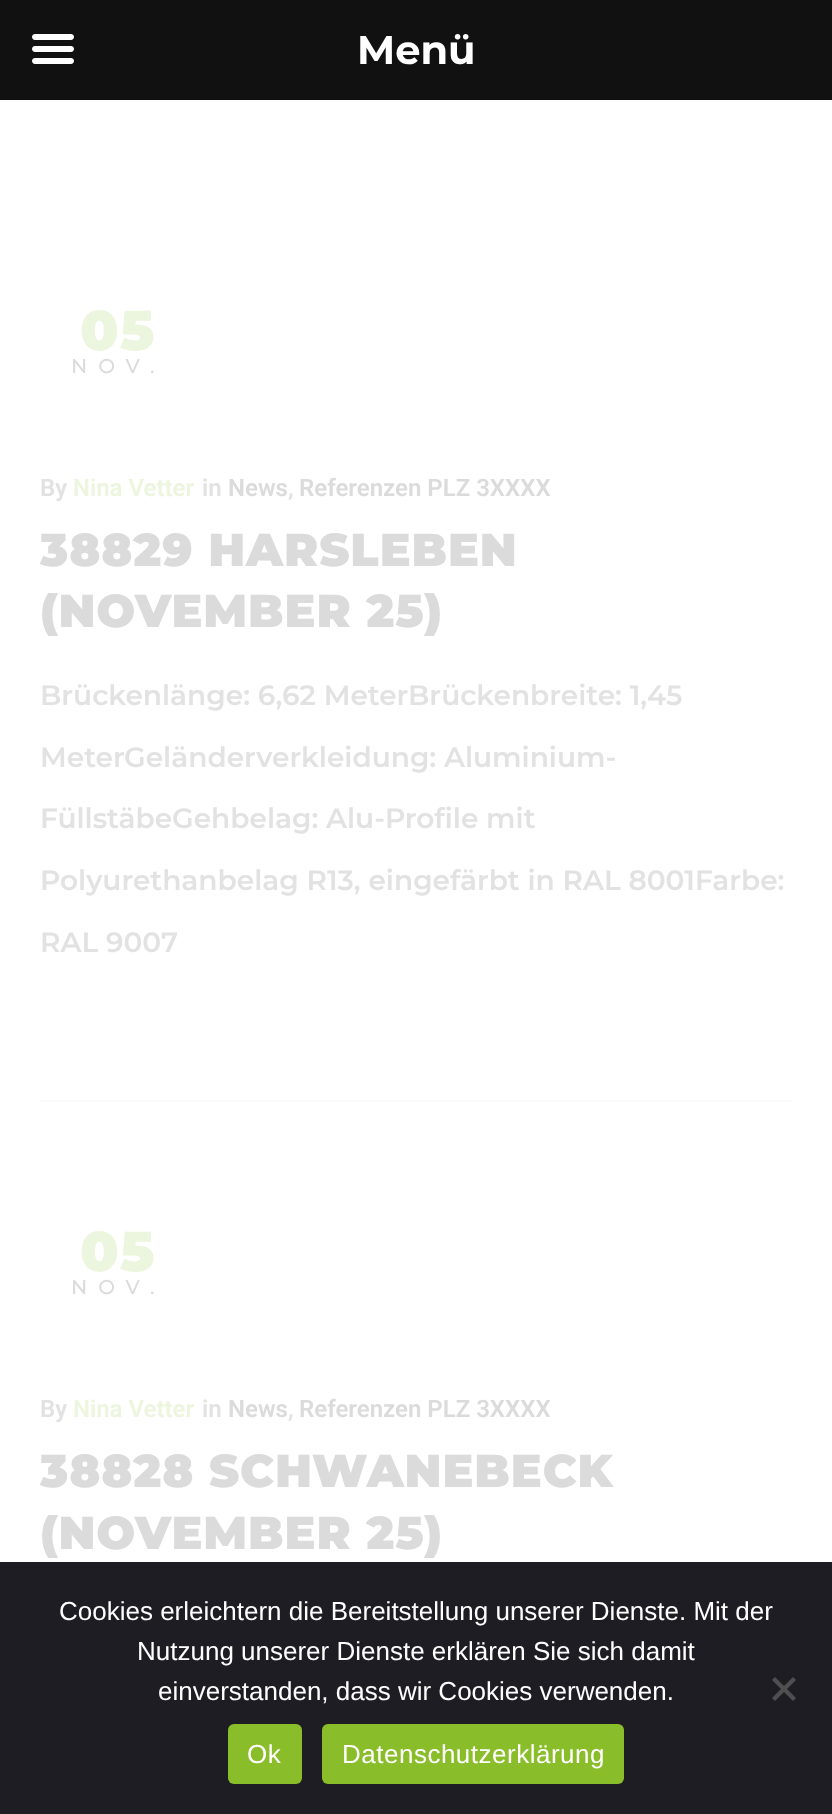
<?xml version="1.0" encoding="UTF-8"?>
<svg xmlns="http://www.w3.org/2000/svg" width="832" height="1814">
    <rect width="100%" height="100%" fill="#FFFFFF"/>
    <rect x="0" y="0" width="832" height="100" fill="#111111"/>
    <image x="32" y="34" width="42" height="30" href="img_01.png"/>
    <text x="357" y="64" font-family="Montserrat" font-size="40" font-weight="700" fill="#FFFFFF">Menü</text>
    <text x="80" y="350" font-family="Montserrat" font-size="56" font-weight="900" letter-spacing="1" fill="#ECF5DD">05</text>
    <text x="71" y="373" font-family="Montserrat" font-size="20" font-weight="500" letter-spacing="11" fill="#DBDBDC">NOV.</text>
    <text x="40" y="496" font-family="Roboto" font-size="24" font-weight="600" fill="#E2E2E3">By</text>
    <text x="73" y="496" font-family="Roboto" font-size="24" font-weight="600" fill="#ECF5DD">Nina Vetter</text>
    <text x="202" y="496" font-family="Roboto" font-size="24" font-weight="600" fill="#E2E2E3">in</text>
    <text x="228" y="496" font-family="Roboto" font-size="24" font-weight="600" fill="#DBDBDC">News</text>
    <text x="288" y="496" font-family="Roboto" font-size="24" font-weight="600" fill="#E2E2E3">,</text>
    <text x="299" y="496" font-family="Roboto" font-size="24" font-weight="600" fill="#DBDBDC">Referenzen PLZ 3XXXX</text>
    <text font-family="Montserrat" font-size="46" font-weight="900" letter-spacing="0.9" fill="#DBDBDC">
        <tspan x="40" y="566">38829 HARSLEBEN</tspan>
        <tspan x="40" y="627">(NOVEMBER 25)</tspan>
    </text>
    <text x="40" y="705" font-family="Montserrat" font-size="28" font-weight="600" fill="#E2E2E3">Brückenlänge: 6,62 MeterBrückenbreite: 1,45</text>
    <text x="40" y="767" font-family="Montserrat" font-size="28" font-weight="600" fill="#E2E2E3">MeterGeländerverkleidung: Aluminium-</text>
    <text x="40" y="828" font-family="Montserrat" font-size="28" font-weight="600" fill="#E2E2E3">FüllstäbeGehbelag: Alu-Profile mit</text>
    <text x="40" y="890" font-family="Montserrat" font-size="28" font-weight="600" fill="#E2E2E3">Polyurethanbelag R13, eingefärbt in RAL 8001Farbe:</text>
    <text x="40" y="952" font-family="Montserrat" font-size="28" font-weight="600" fill="#E2E2E3">RAL 9007</text>
    <rect x="40" y="1100" width="752" height="2" fill="#FBFAFB"/>
    <text x="80" y="1271" font-family="Montserrat" font-size="56" font-weight="900" letter-spacing="1" fill="#ECF5DD">05</text>
    <text x="71" y="1294" font-family="Montserrat" font-size="20" font-weight="500" letter-spacing="11" fill="#DBDBDC">NOV.</text>
    <text x="40" y="1417" font-family="Roboto" font-size="24" font-weight="600" fill="#E2E2E3">By</text>
    <text x="73" y="1417" font-family="Roboto" font-size="24" font-weight="600" fill="#ECF5DD">Nina Vetter</text>
    <text x="202" y="1417" font-family="Roboto" font-size="24" font-weight="600" fill="#E2E2E3">in</text>
    <text x="228" y="1417" font-family="Roboto" font-size="24" font-weight="600" fill="#DBDBDC">News</text>
    <text x="288" y="1417" font-family="Roboto" font-size="24" font-weight="600" fill="#E2E2E3">,</text>
    <text x="299" y="1417" font-family="Roboto" font-size="24" font-weight="600" fill="#DBDBDC">Referenzen PLZ 3XXXX</text>
    <text font-family="Montserrat" font-size="46" font-weight="900" letter-spacing="0.9" fill="#DBDBDC">
        <tspan x="40" y="1487">38828 SCHWANEBECK</tspan>
        <tspan x="40" y="1549">(NOVEMBER 25)</tspan>
    </text>
    <rect x="0" y="1562" width="832" height="252" fill="#1E1D24"/>
    <text x="59" y="1620" font-family="Liberation Sans" font-size="26" fill="#FFFFFF">Cookies erleichtern die Bereitstellung unserer Dienste. Mit der</text>
    <text x="137" y="1660" font-family="Liberation Sans" font-size="26" fill="#FFFFFF">Nutzung unserer Dienste erklären Sie sich damit</text>
    <text x="158" y="1700" font-family="Liberation Sans" font-size="26" fill="#FFFFFF">einverstanden, dass wir Cookies verwenden.</text>
    <path d="M 793 1677 L 796 1680 L 775 1701 L 772 1698 Z" fill="#4F4F52"/>
    <path d="M 772 1680 L 775 1677 L 796 1698 L 793 1701 Z" fill="#4F4F52"/>
    <rect x="228" y="1724" width="74" height="60" rx="6" fill="#89BD29"/>
    <text x="247" y="1763" font-family="Liberation Sans" font-size="26" letter-spacing="0.5" fill="#FFFFFF">Ok</text>
    <rect x="322" y="1724" width="302" height="60" rx="6" fill="#89BD29"/>
    <text x="342" y="1763" font-family="Liberation Sans" font-size="26" letter-spacing="0.5" fill="#FFFFFF">Datenschutzerklärung</text>
</svg>
